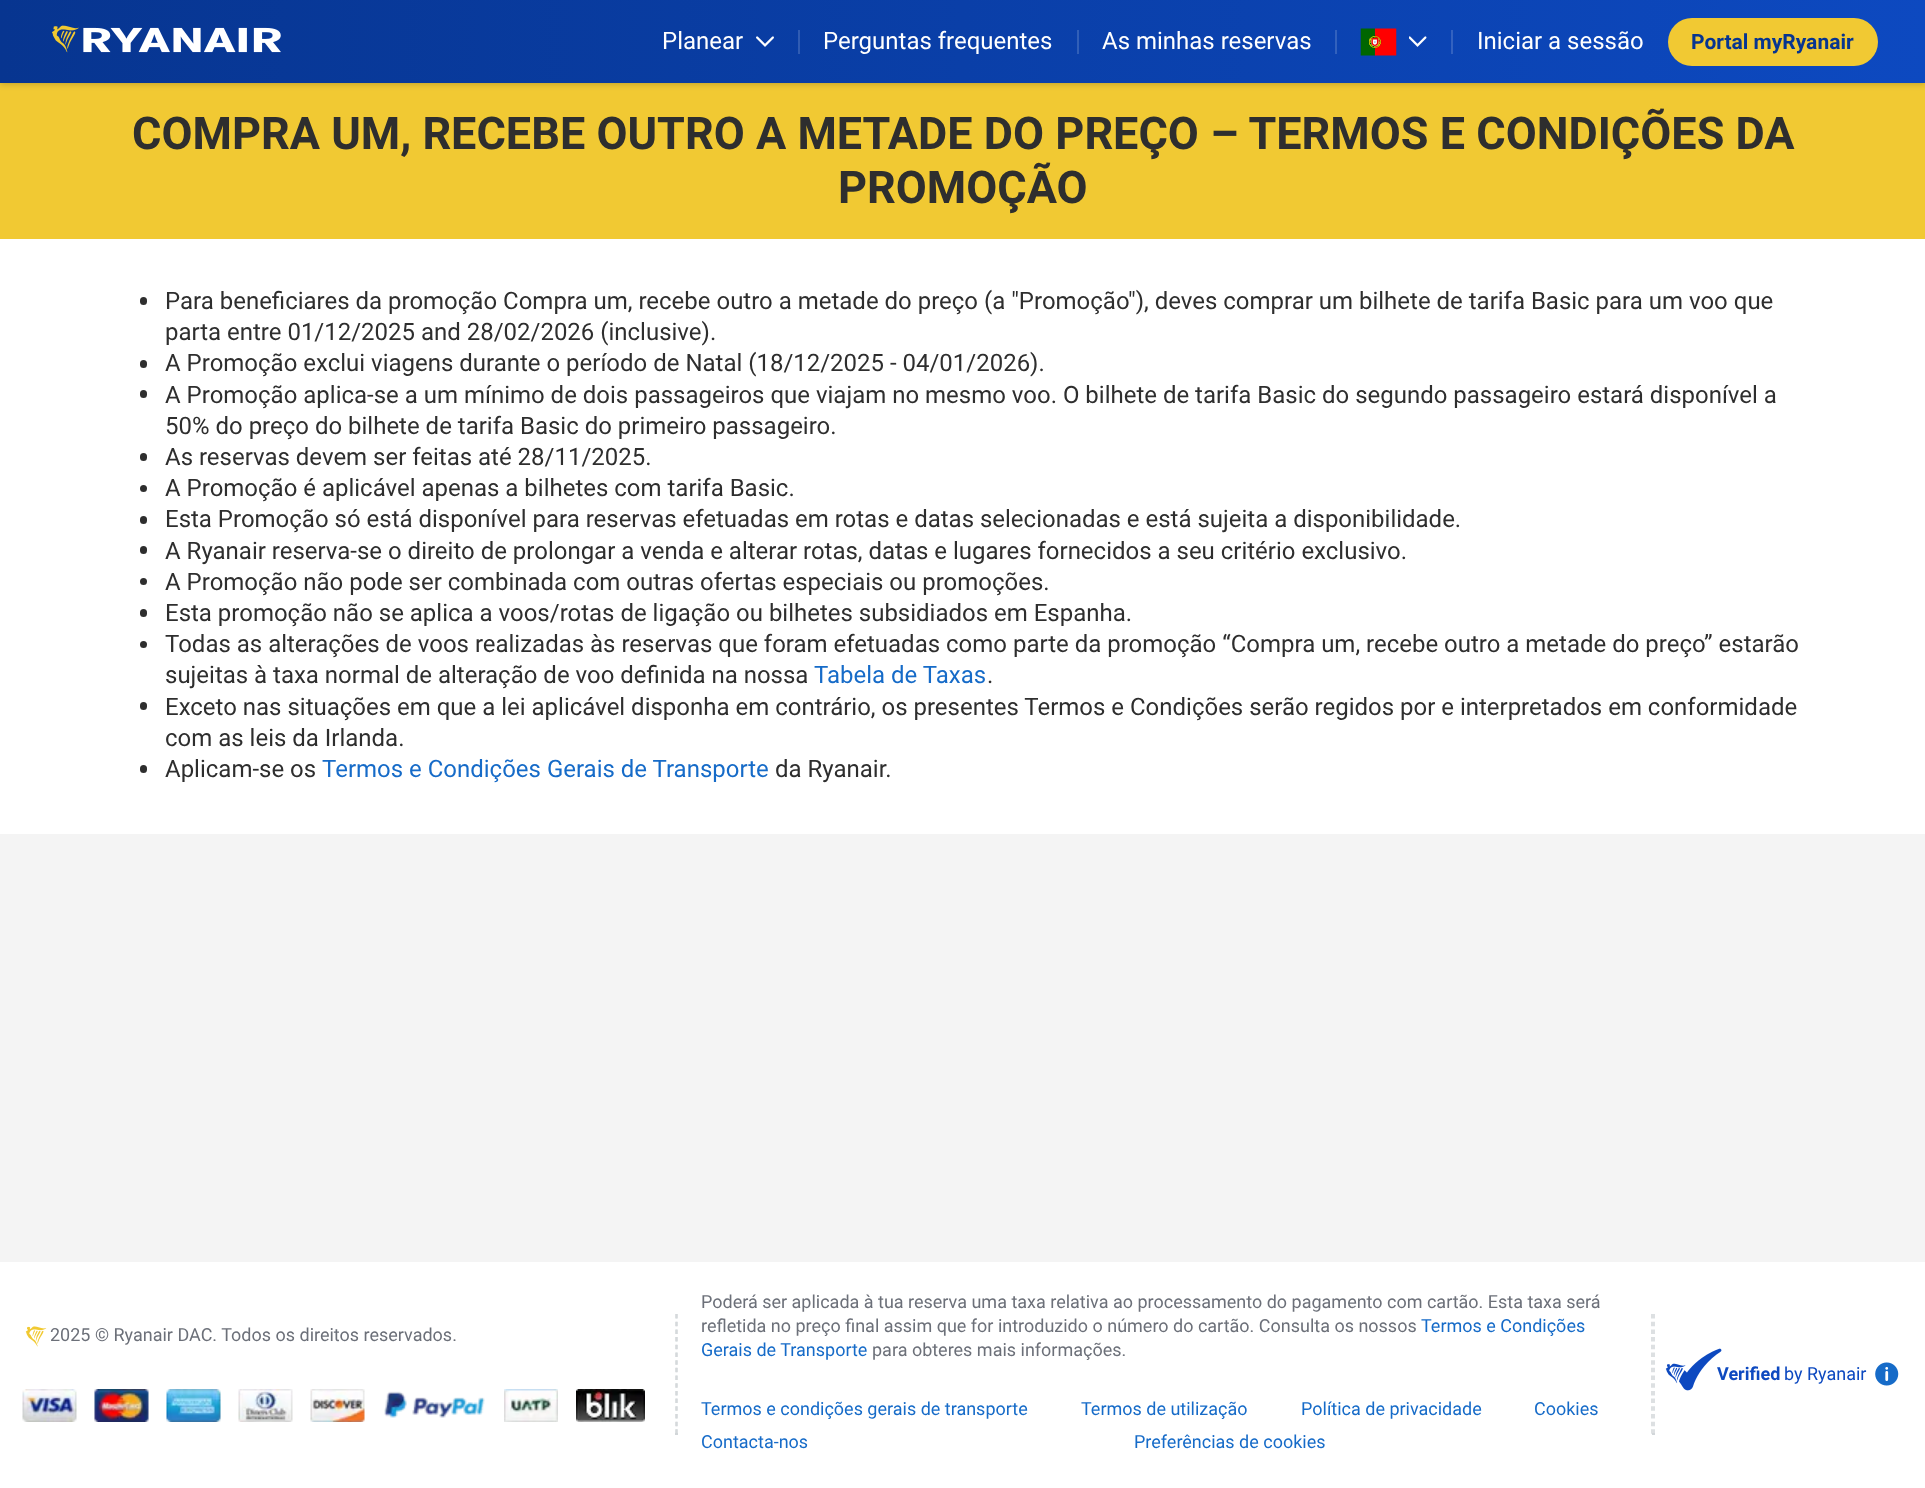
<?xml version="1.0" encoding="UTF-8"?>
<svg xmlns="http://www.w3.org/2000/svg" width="1925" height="1488">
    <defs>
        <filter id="blur1" x="-50%" y="-200%" width="200%" height="500%"><feGaussianBlur stdDeviation="3"/></filter>
        <linearGradient id="g1" gradientUnits="userSpaceOnUse" x1="0" y1="41" x2="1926" y2="41"><stop offset="0" stop-color="#073590"/><stop offset="1" stop-color="#0D49C0"/></linearGradient>
    </defs>
    <rect width="100%" height="100%" fill="#F4F4F4"/>
    <rect x="0" y="83" width="1925" height="156" fill="#F1C933"/>
    <rect x="0" y="2" width="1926" height="82" fill="#000000" fill-opacity="0.2" filter="url(#blur1)"/>
    <rect x="0" y="0" width="1925" height="83" fill="url(#g1)"/>
    <image x="52" y="25" width="229" height="28" href="img_01.png"/>
    <text x="662" y="49" font-family="Roboto" font-size="24" fill="#FFFFFF">Planear</text>
    <image x="756" y="36" width="18" height="11" href="img_02.png"/>
    <rect x="798" y="30" width="2" height="24" fill="#305CB3"/>
    <text x="823" y="49" font-family="Roboto" font-size="24" fill="#FFFFFF">Perguntas frequentes</text>
    <rect x="1077" y="30" width="2" height="24" fill="#315FB8"/>
    <text x="1102" y="49" font-family="Roboto" font-size="24" fill="#FFFFFF">As minhas reservas</text>
    <rect x="1335" y="30" width="2" height="24" fill="#3261BD"/>
    <image x="1360" y="28" width="37" height="28" href="img_03.png"/>
    <image x="1409" y="36" width="18" height="11" href="img_04.png"/>
    <rect x="1451" y="30" width="2" height="24" fill="#3362C0"/>
    <text x="1477" y="49" font-family="Roboto" font-size="24" fill="#FFFFFF">Iniciar a sessão</text>
    <rect x="1668" y="18" width="210" height="48" rx="24" fill="#F1C933"/>
    <text x="1691" y="49" font-family="Roboto" font-size="21" font-weight="700" fill="#073590">Portal myRyanair</text>
    <text x="132" y="149" font-family="Roboto" font-size="45" font-weight="700" fill="#2E2E2E">COMPRA UM, RECEBE OUTRO A METADE DO PREÇO – TERMOS E CONDIÇÕES DA</text>
    <text x="838" y="203" font-family="Roboto" font-size="45" font-weight="700" fill="#2E2E2E">PROMOÇÃO</text>
    <rect x="0" y="239" width="1925" height="595" fill="#FFFFFF"/>
    <rect x="140" y="297" width="7" height="8" rx="3.5" fill="#2E2E2E"/>
    <text font-family="Roboto" font-size="24" fill="#2E2E2E">
        <tspan x="165" y="309">Para beneficiares da promoção Compra um, recebe outro a metade do preço (a "Promoção"), deves comprar um bilhete de tarifa Basic para um voo que</tspan>
        <tspan x="165" y="340">parta entre 01/12/2025 and 28/02/2026 (inclusive).</tspan>
    </text>
    <rect x="140" y="360" width="7" height="8" rx="3.5" fill="#2E2E2E"/>
    <text x="165" y="371" font-family="Roboto" font-size="24" fill="#2E2E2E">A Promoção exclui viagens durante o período de Natal (18/12/2025 - 04/01/2026).</text>
    <rect x="140" y="390" width="7" height="8" rx="3.5" fill="#2E2E2E"/>
    <text font-family="Roboto" font-size="24" fill="#2E2E2E">
        <tspan x="165" y="403">A Promoção aplica-se a um mínimo de dois passageiros que viajam no mesmo voo. O bilhete de tarifa Basic do segundo passageiro estará disponível a</tspan>
        <tspan x="165" y="434">50% do preço do bilhete de tarifa Basic do primeiro passageiro.</tspan>
    </text>
    <rect x="140" y="453" width="7" height="8" rx="3.5" fill="#2E2E2E"/>
    <text x="165" y="465" font-family="Roboto" font-size="24" fill="#2E2E2E">As reservas devem ser feitas até 28/11/2025.</text>
    <circle cx="143.5" cy="488.5" r="3.5" fill="#2E2E2E"/>
    <text x="165" y="496" font-family="Roboto" font-size="24" fill="#2E2E2E">A Promoção é aplicável apenas a bilhetes com tarifa Basic.</text>
    <rect x="140" y="516" width="7" height="8" rx="3.5" fill="#2E2E2E"/>
    <text x="165" y="527" font-family="Roboto" font-size="24" fill="#2E2E2E">Esta Promoção só está disponível para reservas efetuadas em rotas e datas selecionadas e está sujeita a disponibilidade.</text>
    <rect x="140" y="546" width="7" height="8" rx="3.5" fill="#2E2E2E"/>
    <text x="165" y="559" font-family="Roboto" font-size="24" fill="#2E2E2E">A Ryanair reserva-se o direito de prolongar a venda e alterar rotas, datas e lugares fornecidos a seu critério exclusivo.</text>
    <circle cx="143.5" cy="581.5" r="3.5" fill="#2E2E2E"/>
    <text x="165" y="590" font-family="Roboto" font-size="24" fill="#2E2E2E">A Promoção não pode ser combinada com outras ofertas especiais ou promoções.</text>
    <rect x="140" y="609" width="7" height="8" rx="3.5" fill="#2E2E2E"/>
    <text x="165" y="621" font-family="Roboto" font-size="24" fill="#2E2E2E">Esta promoção não se aplica a voos/rotas de ligação ou bilhetes subsidiados em Espanha.</text>
    <circle cx="143.5" cy="644.5" r="3.5" fill="#2E2E2E"/>
    <text font-family="Roboto" font-size="24" fill="#2E2E2E">
        <tspan x="165" y="652">Todas as alterações de voos realizadas às reservas que foram efetuadas como parte da promoção “Compra um, recebe outro a metade do preço” estarão</tspan>
        <tspan x="165" y="683">sujeitas à taxa normal de alteração de voo definida na nossa</tspan>
    </text>
    <text x="814" y="683" font-family="Roboto" font-size="24" fill="#166BC8">Tabela de Taxas</text>
    <text x="987" y="683" font-family="Roboto" font-size="24" fill="#2E2E2E">.</text>
    <rect x="140" y="702" width="7" height="8" rx="3.5" fill="#2E2E2E"/>
    <text font-family="Roboto" font-size="24" fill="#2E2E2E">
        <tspan x="165" y="715">Exceto nas situações em que a lei aplicável disponha em contrário, os presentes Termos e Condições serão regidos por e interpretados em conformidade</tspan>
        <tspan x="165" y="746">com as leis da Irlanda.</tspan>
    </text>
    <rect x="140" y="765" width="7" height="8" rx="3.5" fill="#2E2E2E"/>
    <text x="165" y="777" font-family="Roboto" font-size="24" fill="#2E2E2E">Aplicam-se os</text>
    <text x="322" y="777" font-family="Roboto" font-size="24" fill="#166BC8">Termos e Condições Gerais de Transporte</text>
    <text x="775" y="777" font-family="Roboto" font-size="24" fill="#2E2E2E">da Ryanair.</text>
    <rect x="0" y="1262" width="1925" height="226" fill="#FFFFFF"/>
    <image x="25" y="1326" width="22" height="21" href="img_05.png"/>
    <text x="50" y="1341" font-family="Roboto" font-size="18" fill="#6C7079">2025 © Ryanair DAC. Todos os direitos reservados.</text>
    <image x="22" y="1389" width="55" height="33" href="img_06.png"/>
    <image x="94" y="1389" width="55" height="33" href="img_07.png"/>
    <image x="166" y="1389" width="55" height="33" href="img_08.png"/>
    <image x="238" y="1389" width="55" height="33" href="img_09.png"/>
    <image x="310" y="1389" width="55" height="33" href="img_10.png"/>
    <image x="384" y="1391" width="101" height="27" href="img_11.png"/>
    <image x="504" y="1389" width="54" height="33" href="img_12.png"/>
    <image x="576" y="1389" width="69" height="33" href="img_13.png"/>
    <path d="M 677 1314 V 1434" fill="none" stroke="#D2D6D9" stroke-width="1.5" stroke-dasharray="4.5 3.19"/>
    <rect x="675" y="1433" width="3" height="2" fill="#D2D6D9"/>
    <path d="M 676 1314 V 1434" fill="none" stroke="#D2D6D9" stroke-width="1.5" stroke-dasharray="4.5 3.19"/>
    <text font-family="Roboto" font-size="18" fill="#6C7079">
        <tspan x="701" y="1308">Poderá ser aplicada à tua reserva uma taxa relativa ao processamento do pagamento com cartão. Esta taxa será</tspan>
        <tspan x="701" y="1332">refletida no preço final assim que for introduzido o número do cartão. Consulta os nossos</tspan>
    </text>
    <text x="1421" y="1332" font-family="Roboto" font-size="18" fill="#166BC8">Termos e Condições</text>
    <text x="701" y="1356" font-family="Roboto" font-size="18" fill="#166BC8">Gerais de Transporte</text>
    <text x="872" y="1356" font-family="Roboto" font-size="18" fill="#6C7079">para obteres mais informações.</text>
    <text x="701" y="1415" font-family="Roboto" font-size="18" fill="#166BC8">Termos e condições gerais de transporte</text>
    <text x="1081" y="1415" font-family="Roboto" font-size="18" fill="#166BC8">Termos de utilização</text>
    <text x="1301" y="1415" font-family="Roboto" font-size="18" fill="#166BC8">Política de privacidade</text>
    <text x="1534" y="1415" font-family="Roboto" font-size="18" fill="#166BC8">Cookies</text>
    <text x="701" y="1448" font-family="Roboto" font-size="18" fill="#166BC8">Contacta-nos</text>
    <text x="1134" y="1448" font-family="Roboto" font-size="18" fill="#166BC8">Preferências de cookies</text>
    <path d="M 1654 1314 V 1434" fill="none" stroke="#D2D6D9" stroke-width="1.5" stroke-dasharray="4.5 3.19"/>
    <rect x="1652" y="1433" width="3" height="2" fill="#D2D6D9"/>
    <path d="M 1652 1314 V 1434" fill="none" stroke="#D2D6D9" stroke-width="1.5" stroke-dasharray="4.5 3.19"/>
    <text x="1717" y="1380" font-family="Roboto" font-size="18" font-weight="700" fill="#0D49C0">Verified</text>
    <image x="1665" y="1348" width="57" height="43" href="img_14.png"/>
    <text x="1784" y="1380" font-family="Roboto" font-size="18" fill="#0D49C0">by Ryanair</text>
    <image x="1875" y="1362" width="24" height="24" href="img_15.png"/>
</svg>
